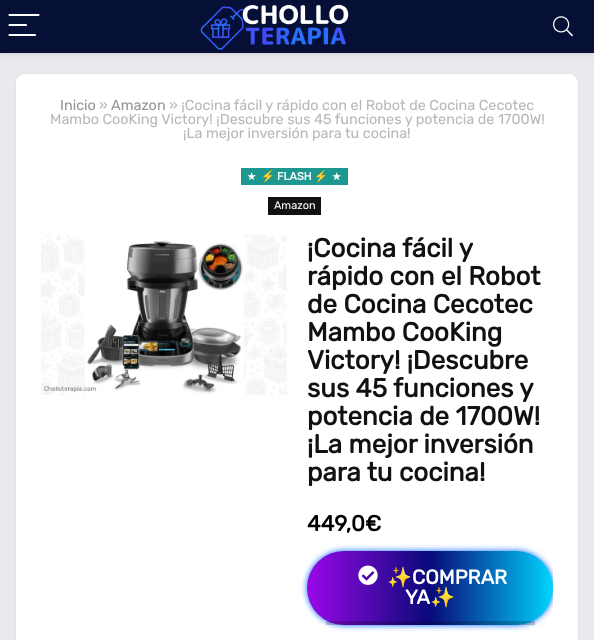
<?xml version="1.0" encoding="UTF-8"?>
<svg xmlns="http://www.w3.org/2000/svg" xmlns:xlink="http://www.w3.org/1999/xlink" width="594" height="640">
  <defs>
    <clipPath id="clip1"><rect x="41" y="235" width="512" height="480" /></clipPath>
    <linearGradient id="g1" gradientUnits="userSpaceOnUse" x1="307" y1="586" x2="553" y2="586"><stop offset="0" stop-color="#9a08e8" /><stop offset="0.5" stop-color="#090979" /><stop offset="1" stop-color="#00d4ff" /></linearGradient>
  </defs>
  <rect width="100%" height="100%" fill="#e9eaed" />
  <rect x="-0.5" y="-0.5" width="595" height="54" fill="none" stroke="#e2e3e6" />
  <rect y="1" width="594" height="53" fill="#000000" fill-opacity="0.1" filter="blur(4px)" />
  <rect width="594" height="53" fill="#061037" />
  <path d="M 9.5 15 h 29 m -29 10 h 16.5 m -16.5 10 h 25.5" fill="none" stroke="#ffffff" stroke-width="2.2" stroke-linecap="round" />
  <image x="200" y="4" width="149" height="46" xlink:href="image1.png" />
  <image x="553" y="16" width="20" height="21" xlink:href="image2.png" />
  <rect x="15.5" y="73.5" width="563" height="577" rx="9.5" fill="#ffffff" stroke="#e3e3e3" />
  <rect x="241" y="168" width="107" height="17" fill="#1d9891" />
  <rect x="268" y="197" width="53" height="18" fill="#111111" />
  <image x="41" y="235" width="246" height="160" xlink:href="image3.png" />
  <g clip-path="url(#clip1)">
    <rect x="307" y="551" width="246" height="74" rx="37" fill="#0067ff" filter="blur(3px)" />
  </g>
  <rect x="307" y="551" width="246" height="74" rx="37" fill="url(#g1)" />
  <rect x="326" y="621" width="209" height="4" fill="#000000" fill-opacity="0.2" />
  <image x="358" y="565" width="20" height="20" xlink:href="image4.png" />
  <text x="60" y="110" style="font-family: Rubik; font-size: 14.4px; font-weight: 300; fill: #949494">Inicio</text>
  <text x="99" y="110" style="font-family: Rubik; font-size: 14.4px; font-weight: 300; fill: #b8b8b8">»</text>
  <text x="111" y="110" style="font-family: Rubik; font-size: 14.4px; font-weight: 300; fill: #949494">Amazon</text>
  <text x="169" y="110" style="font-family: Rubik; font-size: 14.4px; font-weight: 300; fill: #b8b8b8">» ¡Cocina fácil y rápido con el Robot de Cocina Cecotec</text>
  <text x="50" y="124" style="font-family: Rubik; font-size: 14.4px; font-weight: 300; fill: #b8b8b8">Mambo CooKing Victory! ¡Descubre sus 45 funciones y potencia de 1700W!</text>
  <text x="183" y="138" style="font-family: Rubik; font-size: 14.4px; font-weight: 300; fill: #b8b8b8">¡La mejor inversión para tu cocina!</text>
  <text x="247" y="180" style="font-family: DejaVu Sans; font-size: 10px; font-weight: bold; fill: #ffffff">★</text>
  <text x="261" y="180" style="font-family: Noto Color Emoji; font-size: 11px; font-weight: bold; fill: #ffffff">⚡️</text>
  <text x="277" y="180" style="font-family: Rubik; font-size: 11px; font-weight: bold; fill: #ffffff">FLASH</text>
  <text x="314" y="180" style="font-family: Noto Color Emoji; font-size: 11px; font-weight: bold; fill: #ffffff">⚡️</text>
  <text x="332" y="180" style="font-family: DejaVu Sans; font-size: 10px; font-weight: bold; fill: #ffffff">★</text>
  <text x="274" y="209" style="font-family: Rubik; font-size: 11px; font-weight: 300; fill: #ffffff">Amazon</text>
  <text x="307" y="257" style="font-family: Rubik; font-size: 26px; font-weight: bold; fill: #111111">¡Cocina fácil y</text>
  <text x="307" y="285" style="font-family: Rubik; font-size: 26px; font-weight: bold; fill: #111111">rápido con el Robot</text>
  <text x="307" y="313" style="font-family: Rubik; font-size: 26px; font-weight: bold; fill: #111111">de Cocina Cecotec</text>
  <text x="307" y="341" style="font-family: Rubik; font-size: 26px; font-weight: bold; fill: #111111">Mambo CooKing</text>
  <text x="307" y="369" style="font-family: Rubik; font-size: 26px; font-weight: bold; fill: #111111">Victory! ¡Descubre</text>
  <text x="307" y="397" style="font-family: Rubik; font-size: 26px; font-weight: bold; fill: #111111">sus 45 funciones y</text>
  <text x="307" y="425" style="font-family: Rubik; font-size: 26px; font-weight: bold; fill: #111111">potencia de 1700W!</text>
  <text x="307" y="453" style="font-family: Rubik; font-size: 26px; font-weight: bold; fill: #111111">¡La mejor inversión</text>
  <text x="307" y="481" style="font-family: Rubik; font-size: 26px; font-weight: bold; fill: #111111">para tu cocina!</text>
  <text x="307" y="531" style="font-family: Rubik; font-size: 22px; font-weight: bold; fill: #000000">449,0€</text>
  <text x="387" y="584" style="font-family: Noto Color Emoji; font-size: 20px; font-weight: bold; fill: #ffffff">✨</text>
  <text x="412" y="584" style="font-family: Rubik; font-size: 20px; font-weight: bold; fill: #ffffff">COMPRAR</text>
  <text x="405" y="604" style="font-family: Rubik; font-size: 20px; font-weight: bold; fill: #ffffff">YA</text>
  <text x="430" y="604" style="font-family: Noto Color Emoji; font-size: 20px; font-weight: bold; fill: #ffffff">✨</text>
</svg>
